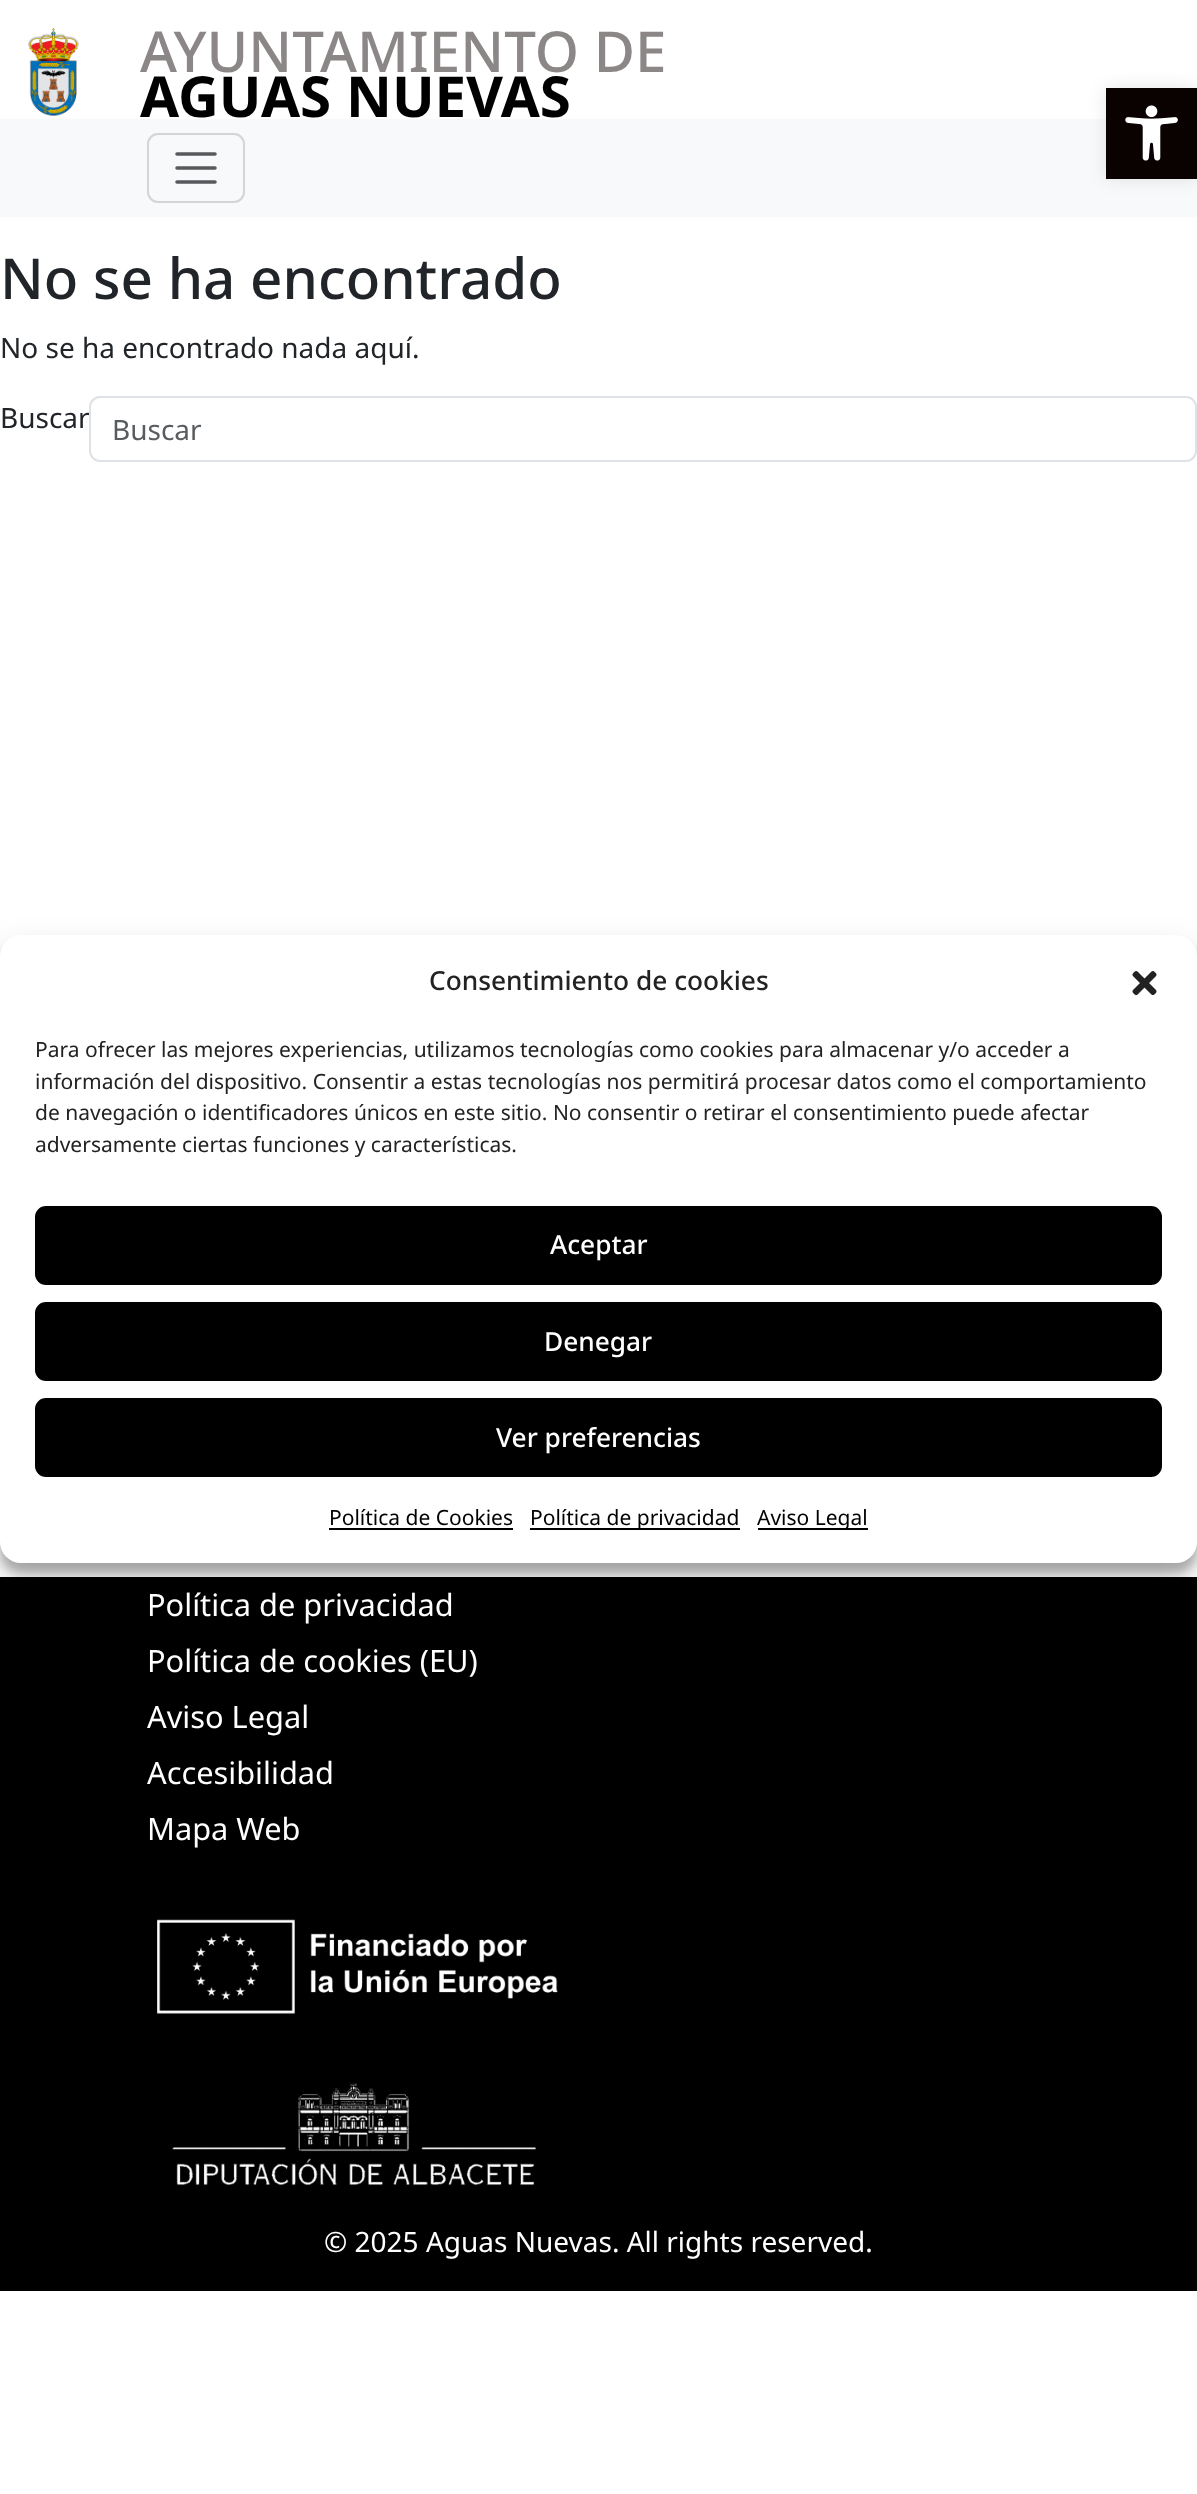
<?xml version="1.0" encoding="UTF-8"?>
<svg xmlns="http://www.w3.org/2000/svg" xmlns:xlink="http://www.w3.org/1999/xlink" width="1197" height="2494">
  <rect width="100%" height="100%" fill="#ffffff" />
  <image x="28" y="28" width="51" height="88" xlink:href="image1.png" />
  <rect y="119" width="1197" height="98" fill="#f8f9fa" />
  <rect x="148" y="134" width="96" height="68" rx="10" fill="none" stroke="#d3d4d5" stroke-width="2" />
  <path d="M 177 154 h 38 m -38 14 h 38 m -38 14 h 38" fill="none" stroke="#575a5d" stroke-width="3.5" stroke-linecap="round" />
  <rect y="1577" width="1197" height="714" fill="#000000" />
  <image x="157" y="1919" width="401" height="95" xlink:href="image2.png" />
  <image x="172" y="2083" width="364" height="103" xlink:href="image3.png" />
  <rect x="1106" y="88" width="91" height="91" fill="#000000" fill-opacity="0.1" filter="blur(9px)" />
  <rect x="1106" y="88" width="91" height="91" fill="#0a0101" />
  <image x="1125" y="105" width="53" height="56" xlink:href="image4.png" />
  <rect y="945" width="1197" height="628" rx="21" fill="#000000" fill-opacity="0.23" filter="blur(5px)" />
  <rect y="952" width="1197" height="628" rx="21" fill="#000000" fill-opacity="0.19" filter="blur(17.5px)" />
  <rect y="935" width="1197" height="628" rx="21" fill="#ffffff" />
  <image x="1132" y="971" width="25" height="25" xlink:href="image5.png" />
  <rect x="36" y="1207" width="1125" height="77" rx="10" fill="#000000" stroke="#000000" stroke-width="2" />
  <rect x="36" y="1303" width="1125" height="77" rx="10" fill="#000000" stroke="#000000" stroke-width="2" />
  <rect x="36" y="1399" width="1125" height="77" rx="10" fill="#000000" stroke="#000000" stroke-width="2" />
  <rect x="329" y="1528" width="184" height="2" fill="#000000" />
  <rect x="530" y="1528" width="210" height="2" fill="#000000" />
  <rect x="758" y="1528" width="110" height="2" fill="#000000" />
  <text x="140" y="72" style="font-family: Noto Sans; font-size: 56.5px; font-weight: 500; fill: #8b8787">AYUNTAMIENTO DE</text>
  <text x="140" y="117" style="font-family: Noto Sans; font-size: 56.5px; font-weight: bold; fill: #000000">AGUAS NUEVAS</text>
  <text x="0" y="299" style="font-family: Noto Sans; font-size: 56.5px; font-weight: 500; fill: #212529">No se ha encontrado</text>
  <text x="0" y="358" style="font-family: Noto Sans; font-size: 28px; fill: #212529">No se ha encontrado nada aquí.</text>
  <text x="0" y="428" style="font-family: Noto Sans; font-size: 28px; fill: #212529">Buscar</text>
  <rect x="90" y="397" width="1106" height="64" rx="10" fill="none" stroke="#dee2e6" stroke-width="2" />
  <text x="112" y="440" style="font-family: Noto Sans; font-size: 28px; fill: #595c5f">Buscar</text>
  <text x="147" y="1616" style="font-family: Noto Sans; font-size: 30.75px; fill: #ffffff">Política de privacidad</text>
  <text x="147" y="1672" style="font-family: Noto Sans; font-size: 30.75px; fill: #ffffff">Política de cookies (EU)</text>
  <text x="147" y="1728" style="font-family: Noto Sans; font-size: 30.75px; fill: #ffffff">Aviso Legal</text>
  <text x="147" y="1784" style="font-family: Noto Sans; font-size: 30.75px; fill: #ffffff">Accesibilidad</text>
  <text x="147" y="1840" style="font-family: Noto Sans; font-size: 30.75px; fill: #ffffff">Mapa Web</text>
  <text x="324" y="2252" style="font-family: Noto Sans; font-size: 28px; fill: #ffffff">© 2025 Aguas Nuevas. All rights reserved.</text>
  <text x="429" y="990" style="font-family: Noto Sans; font-size: 26.25px; font-weight: 500; fill: #222222">Consentimiento de cookies</text>
  <text x="35" y="1057" style="font-family: Noto Sans; font-size: 21px; fill: #222222">Para ofrecer las mejores experiencias, utilizamos tecnologías como cookies para almacenar y/o acceder a</text>
  <text x="35" y="1089" style="font-family: Noto Sans; font-size: 21px; fill: #222222">información del dispositivo. Consentir a estas tecnologías nos permitirá procesar datos como el comportamiento</text>
  <text x="35" y="1120" style="font-family: Noto Sans; font-size: 21px; fill: #222222">de navegación o identificadores únicos en este sitio. No consentir o retirar el consentimiento puede afectar</text>
  <text x="35" y="1152" style="font-family: Noto Sans; font-size: 21px; fill: #222222">adversamente ciertas funciones y características.</text>
  <text x="550" y="1254" style="font-family: Noto Sans; font-size: 26.25px; font-weight: 500; fill: #ffffff">Aceptar</text>
  <text x="544" y="1351" style="font-family: Noto Sans; font-size: 26.25px; font-weight: 500; fill: #ffffff">Denegar</text>
  <text x="496" y="1447" style="font-family: Noto Sans; font-size: 26.25px; font-weight: 500; fill: #ffffff">Ver preferencias</text>
  <text x="329" y="1525" style="font-family: Noto Sans; font-size: 21px; fill: #000000">Política de Cookies</text>
  <text x="530" y="1525" style="font-family: Noto Sans; font-size: 21px; fill: #000000">Política de privacidad</text>
  <text x="757" y="1525" style="font-family: Noto Sans; font-size: 21px; fill: #000000">Aviso Legal</text>
</svg>
